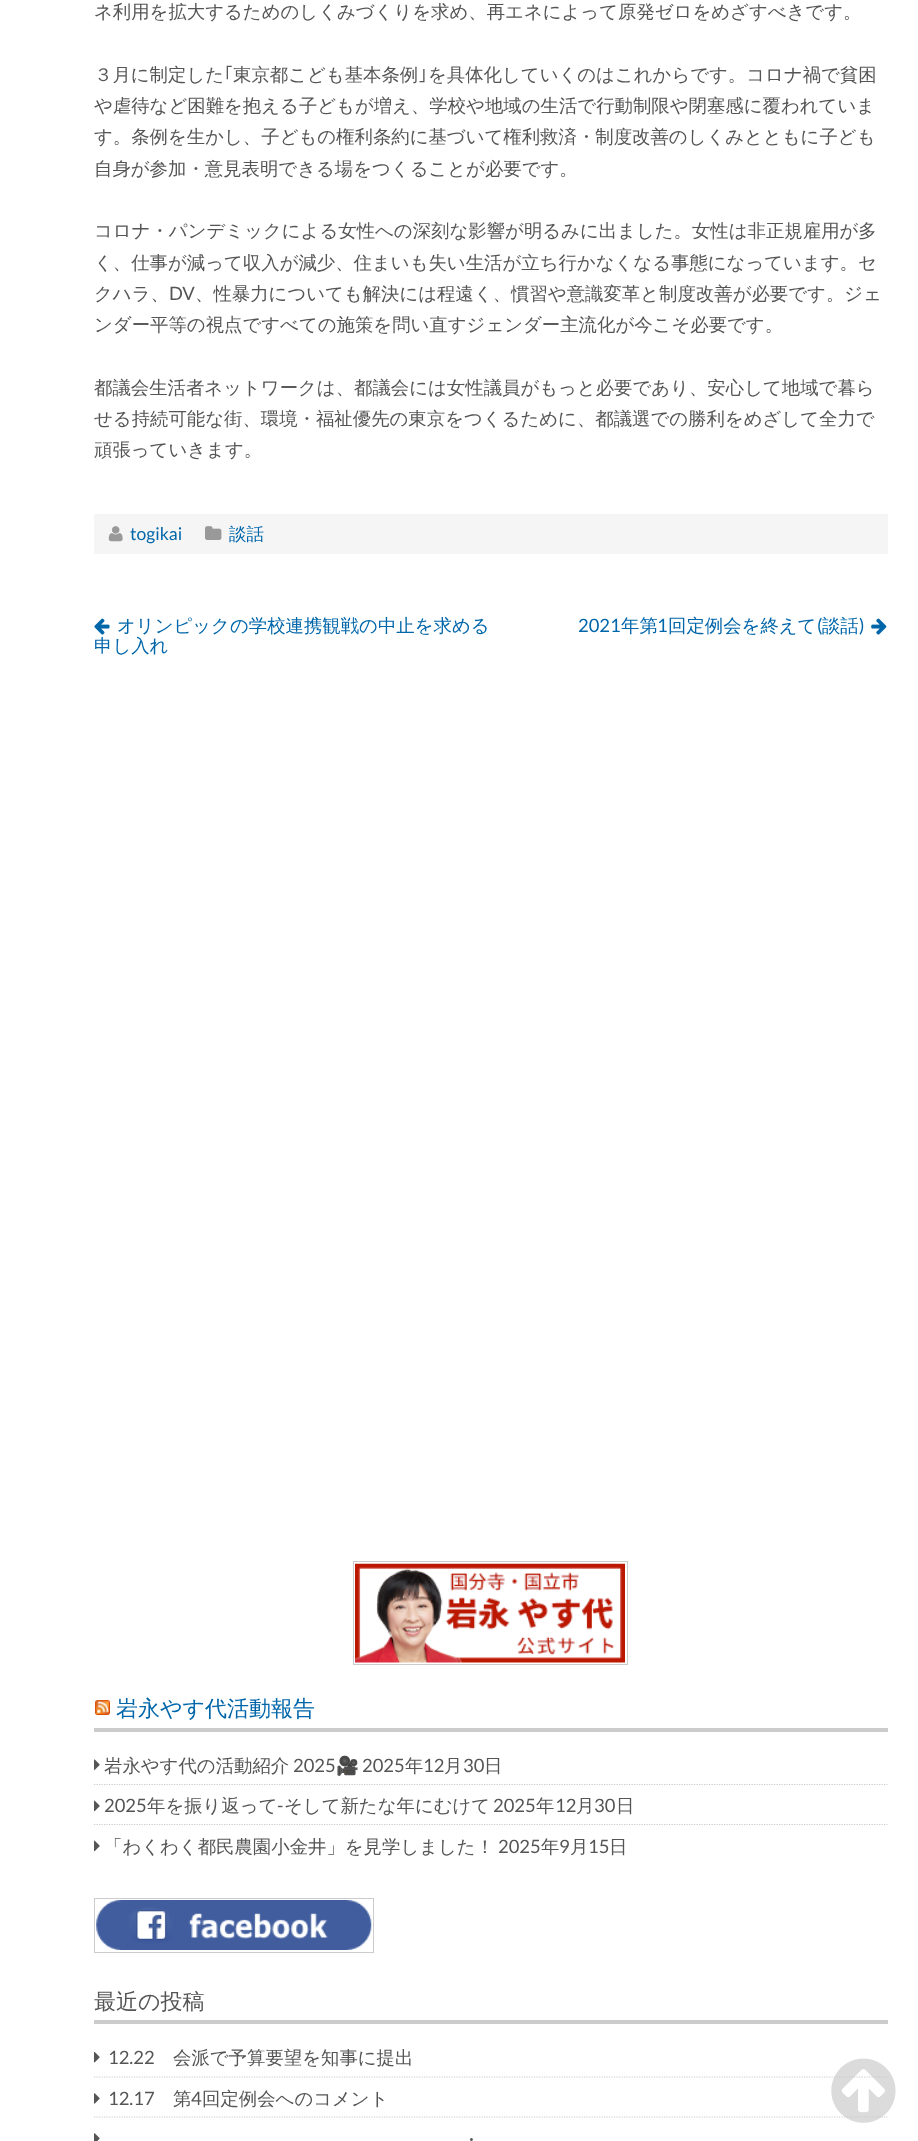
<?xml version="1.0" encoding="UTF-8"?>
<svg xmlns="http://www.w3.org/2000/svg" xmlns:xlink="http://www.w3.org/1999/xlink" width="918" height="2141">
  <defs>
    <clipPath id="clip1"><rect x="94" y="2036" width="794" height="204" /></clipPath>
  </defs>
  <rect width="100%" height="100%" fill="#ffffff" />
  <rect x="94" y="514" width="794" height="40" fill="#f5f5f5" />
  <image x="108" y="526" width="15" height="16" xlink:href="image1.png" />
  <image x="205" y="526" width="17" height="14" xlink:href="image2.png" />
  <image x="94" y="618" width="16" height="17" xlink:href="image3.png" />
  <image x="871" y="618" width="16" height="17" xlink:href="image4.png" />
  <rect x="353.5" y="1561.5" width="274" height="103" fill="none" stroke="#cccccc" />
  <image x="355" y="1563" width="270" height="100" xlink:href="image5.png" />
  <rect x="94" y="1728" width="794" height="4" fill="#cccccc" />
  <image x="95" y="1700" width="15" height="15" xlink:href="image6.png" />
  <image x="94" y="1759" width="6" height="11" xlink:href="image7.png" />
  <path d="M 94 1784.5 h 793.5" fill="none" stroke="#cccccc" stroke-width="1.2" stroke-dasharray="1.25 1.25" />
  <image x="94" y="1800" width="6" height="12" xlink:href="image8.png" />
  <path d="M 94 1824.5 h 793.5" fill="none" stroke="#cccccc" stroke-width="1.2" stroke-dasharray="1.25 1.25" />
  <image x="94" y="1840" width="6" height="12" xlink:href="image8.png" />
  <rect x="94.5" y="1898.5" width="279" height="54" fill="none" stroke="#cccccc" />
  <image x="96" y="1900" width="276" height="50" xlink:href="image9.png" />
  <rect x="94" y="2020" width="794" height="4" fill="#cccccc" />
  <g clip-path="url(#clip1)">
    <path d="M 94 2035.5 h 793.5" fill="none" stroke="#cccccc" stroke-width="1.2" stroke-dasharray="1.25 1.25" />
  </g>
  <image x="94" y="2052" width="6" height="11" xlink:href="image10.png" />
  <path d="M 94 2077 h 793.5" fill="none" stroke="#cccccc" stroke-width="1.2" stroke-dasharray="1.25 1.25" />
  <image x="94" y="2093" width="6" height="11" xlink:href="image11.png" />
  <path d="M 94 2117 h 793.5" fill="none" stroke="#cccccc" stroke-width="1.2" stroke-dasharray="1.25 1.25" />
  <image x="94" y="2133" width="6" height="8" xlink:href="image12.png" />
  <image x="831" y="2058" width="65" height="65" xlink:href="image13.png" />
  <text x="94" y="18" style="font-family: WenQuanYi Zen Hei; font-size: 18.4px; font-weight: 500; fill: #555555">ネ利用を拡大するためのしくみづくりを求め、再エネによって原発ゼロをめざすべきです。</text>
  <text x="94" y="81" style="font-family: WenQuanYi Zen Hei; font-size: 18.4px; font-weight: 500; fill: #555555">３月に制定した</text>
  <text x="224" y="81" style="font-family: IPAPGothic; font-size: 18.4px; fill: #555555">｢</text>
  <text x="233" y="81" style="font-family: WenQuanYi Zen Hei; font-size: 18.4px; font-weight: 500; fill: #555555">東京都こども基本条例</text>
  <text x="418" y="81" style="font-family: IPAPGothic; font-size: 18.4px; fill: #555555">｣</text>
  <text x="428" y="81" style="font-family: WenQuanYi Zen Hei; font-size: 18.4px; font-weight: 500; fill: #555555">を具体化していくのはこれからです。コロナ禍で貧困</text>
  <text x="94" y="112" style="font-family: WenQuanYi Zen Hei; font-size: 18.4px; font-weight: 500; fill: #555555">や虐待など困難を抱える子どもが増え、学校や地域の生活で行動制限や閉塞感に覆われていま</text>
  <text x="94" y="143" style="font-family: WenQuanYi Zen Hei; font-size: 18.4px; font-weight: 500; fill: #555555">す。条例を生かし、子どもの権利条約に基づいて権利救済・制度改善のしくみとともに子ども</text>
  <text x="94" y="175" style="font-family: WenQuanYi Zen Hei; font-size: 18.4px; font-weight: 500; fill: #555555">自身が参加・意見表明できる場をつくることが必要です。</text>
  <text x="94" y="237" style="font-family: WenQuanYi Zen Hei; font-size: 18.4px; font-weight: 500; fill: #555555">コロナ・パンデミックによる女性への深刻な影響が明るみに出ました。女性は非正規雇用が多</text>
  <text x="94" y="269" style="font-family: WenQuanYi Zen Hei; font-size: 18.4px; font-weight: 500; fill: #555555">く、仕事が減って収入が減少、住まいも失い生活が立ち行かなくなる事態になっています。セ</text>
  <text x="94" y="300" style="font-family: WenQuanYi Zen Hei; font-size: 18.4px; font-weight: 500; fill: #555555">クハラ、</text>
  <text x="169" y="300" style="font-family: Lato; font-size: 18.4px; fill: #555555">DV</text>
  <text x="195" y="300" style="font-family: WenQuanYi Zen Hei; font-size: 18.4px; font-weight: 500; fill: #555555">、性暴力についても解決には程遠く、慣習や意識変革と制度改善が必要です。ジェ</text>
  <text x="94" y="331" style="font-family: WenQuanYi Zen Hei; font-size: 18.4px; font-weight: 500; fill: #555555">ンダー平等の視点ですべての施策を問い直すジェンダー主流化が今こそ必要です。</text>
  <text x="94" y="394" style="font-family: WenQuanYi Zen Hei; font-size: 18.4px; font-weight: 500; fill: #555555">都議会生活者ネットワークは、都議会には女性議員がもっと必要であり、安心して地域で暮ら</text>
  <text x="94" y="425" style="font-family: WenQuanYi Zen Hei; font-size: 18.4px; font-weight: 500; fill: #555555">せる持続可能な街、環境・福祉優先の東京をつくるために、都議選での勝利をめざして全力で</text>
  <text x="94" y="456" style="font-family: WenQuanYi Zen Hei; font-size: 18.4px; font-weight: 500; fill: #555555">頑張っていきます。</text>
  <text x="130" y="540" style="font-family: Lato; font-size: 17.5px; fill: #0066aa">togikai</text>
  <text x="229" y="540" style="font-family: WenQuanYi Zen Hei; font-size: 17.5px; font-weight: 500; fill: #0066aa">談話</text>
  <text x="117" y="632" style="font-family: WenQuanYi Zen Hei; font-size: 18.4px; font-weight: 500; fill: #0066aa">オリンピックの学校連携観戦の中止を求める</text>
  <text x="94" y="652" style="font-family: WenQuanYi Zen Hei; font-size: 18.4px; font-weight: 500; fill: #0066aa">申し入れ</text>
  <text x="621" y="632" style="font-family: WenQuanYi Zen Hei; font-size: 18.4px; font-weight: 500; fill: #0066aa">年第</text>
  <text x="668" y="632" style="font-family: WenQuanYi Zen Hei; font-size: 18.4px; font-weight: 500; fill: #0066aa">回定例会を終えて 談話</text>
  <text x="578" y="632" style="font-family: Lato; font-size: 18.4px; fill: #0066aa">2021</text>
  <text x="657" y="632" style="font-family: Lato; font-size: 18.4px; fill: #0066aa">1</text>
  <text x="817" y="632" style="font-family: Lato; font-size: 18.4px; fill: #0066aa">(</text>
  <text x="859" y="632" style="font-family: Lato; font-size: 18.4px; fill: #0066aa">)</text>
  <text x="116" y="1716" style="font-family: WenQuanYi Zen Hei; font-size: 22px; font-weight: 500; fill: #0066aa">岩永やす代活動報告</text>
  <text x="104" y="1772" style="font-family: WenQuanYi Zen Hei; font-size: 18.4px; font-weight: 500; fill: #555555">岩永やす代の活動紹介</text>
  <text x="293" y="1772" style="font-family: Lato; font-size: 18.4px; fill: #555555">2025</text>
  <text x="336" y="1772" style="font-family: Noto Color Emoji; font-size: 18.4px; fill: #555555">🎥</text>
  <text x="362" y="1772" style="font-family: Lato; font-size: 18.4px; fill: #555555">2025</text>
  <text x="405" y="1772" style="font-family: WenQuanYi Zen Hei; font-size: 18.4px; font-weight: 500; fill: #555555">年</text>
  <text x="423" y="1772" style="font-family: Lato; font-size: 18.4px; fill: #555555">12</text>
  <text x="444" y="1772" style="font-family: WenQuanYi Zen Hei; font-size: 18.4px; font-weight: 500; fill: #555555">月</text>
  <text x="463" y="1772" style="font-family: Lato; font-size: 18.4px; fill: #555555">30</text>
  <text x="484" y="1772" style="font-family: WenQuanYi Zen Hei; font-size: 18.4px; font-weight: 500; fill: #555555">日</text>
  <text x="104" y="1812" style="font-family: Lato; font-size: 18.4px; fill: #555555">2025</text>
  <text x="147" y="1812" style="font-family: WenQuanYi Zen Hei; font-size: 18.4px; font-weight: 500; fill: #555555">年を振り返って</text>
  <text x="277" y="1812" style="font-family: Lato; font-size: 18.4px; fill: #555555">-</text>
  <text x="284" y="1812" style="font-family: WenQuanYi Zen Hei; font-size: 18.4px; font-weight: 500; fill: #555555">そして新たな年にむけて</text>
  <text x="493" y="1812" style="font-family: Lato; font-size: 18.4px; fill: #555555">2025</text>
  <text x="536" y="1812" style="font-family: WenQuanYi Zen Hei; font-size: 18.4px; font-weight: 500; fill: #555555">年</text>
  <text x="555" y="1812" style="font-family: Lato; font-size: 18.4px; fill: #555555">12</text>
  <text x="576" y="1812" style="font-family: WenQuanYi Zen Hei; font-size: 18.4px; font-weight: 500; fill: #555555">月</text>
  <text x="594" y="1812" style="font-family: Lato; font-size: 18.4px; fill: #555555">30</text>
  <text x="616" y="1812" style="font-family: WenQuanYi Zen Hei; font-size: 18.4px; font-weight: 500; fill: #555555">日</text>
  <text x="104" y="1853" style="font-family: WenQuanYi Zen Hei; font-size: 18.4px; font-weight: 500; fill: #555555">「わくわく都民農園小金井」を見学しました！</text>
  <text x="498" y="1853" style="font-family: Lato; font-size: 18.4px; fill: #555555">2025</text>
  <text x="541" y="1853" style="font-family: WenQuanYi Zen Hei; font-size: 18.4px; font-weight: 500; fill: #555555">年</text>
  <text x="559" y="1853" style="font-family: Lato; font-size: 18.4px; fill: #555555">9</text>
  <text x="570" y="1853" style="font-family: WenQuanYi Zen Hei; font-size: 18.4px; font-weight: 500; fill: #555555">月</text>
  <text x="588" y="1853" style="font-family: Lato; font-size: 18.4px; fill: #555555">15</text>
  <text x="609" y="1853" style="font-family: WenQuanYi Zen Hei; font-size: 18.4px; font-weight: 500; fill: #555555">日</text>
  <text x="94" y="2009" style="font-family: WenQuanYi Zen Hei; font-size: 22px; font-weight: 500; fill: #555555">最近の投稿</text>
  <text x="108" y="2064" style="font-family: Lato; font-size: 18.4px; fill: #555555">12.22</text>
  <text x="173" y="2064" style="font-family: WenQuanYi Zen Hei; font-size: 18.4px; font-weight: 500; fill: #555555">会派で予算要望を知事に提出</text>
  <text x="108" y="2105" style="font-family: Lato; font-size: 18.4px; fill: #555555">12.17</text>
  <text x="173" y="2105" style="font-family: WenQuanYi Zen Hei; font-size: 18.4px; font-weight: 500; fill: #555555">第</text>
  <text x="191" y="2105" style="font-family: Lato; font-size: 18.4px; fill: #555555">4</text>
  <text x="202" y="2105" style="font-family: WenQuanYi Zen Hei; font-size: 18.4px; font-weight: 500; fill: #555555">回定例会へのコメント</text>
  <text x="462" y="2146" word-spacing="-2" style="font-family: WenQuanYi Zen Hei; font-size: 18.4px; font-weight: 500; fill: #555555">・</text>
</svg>
